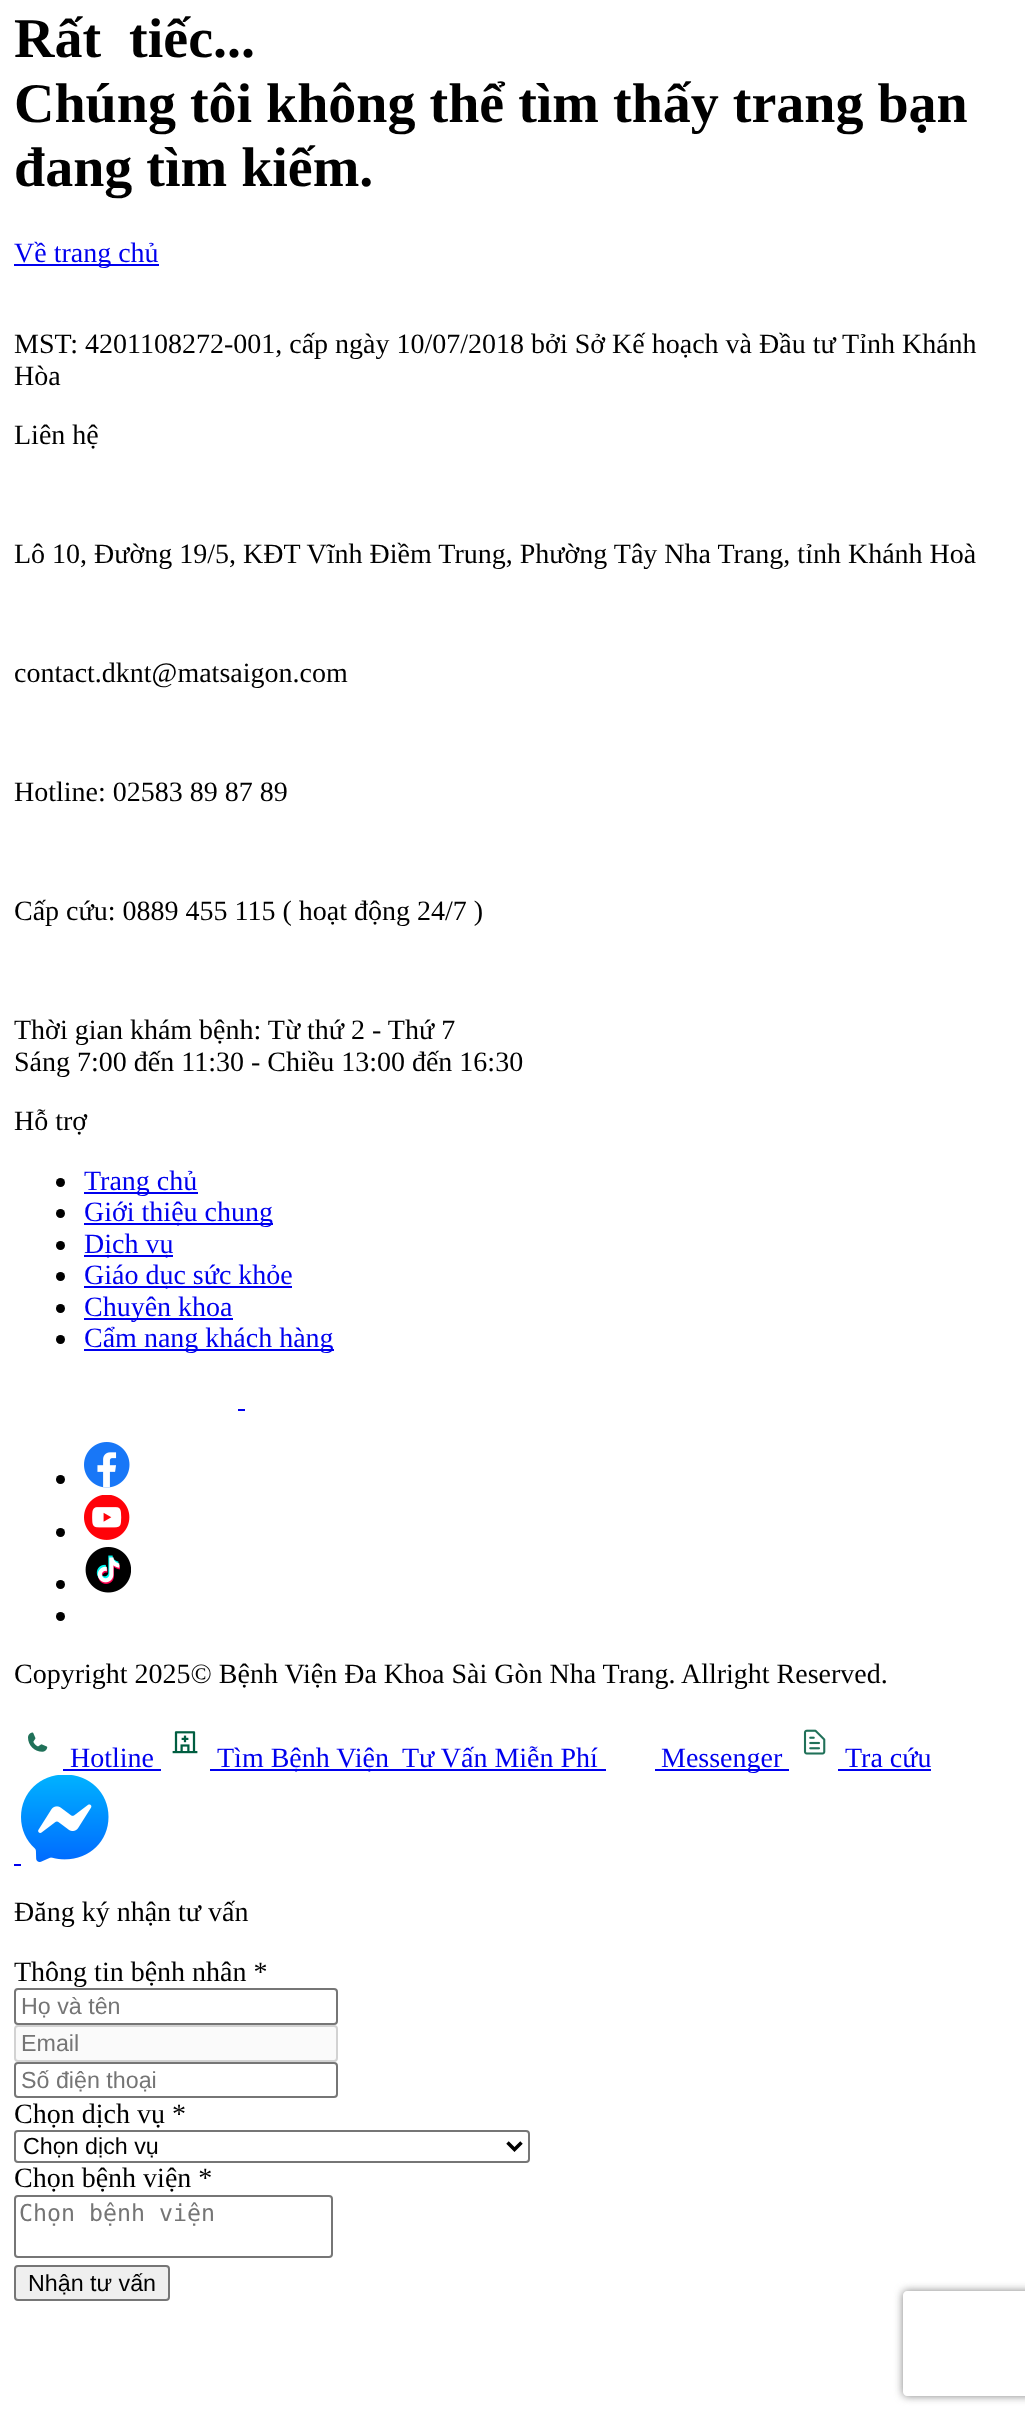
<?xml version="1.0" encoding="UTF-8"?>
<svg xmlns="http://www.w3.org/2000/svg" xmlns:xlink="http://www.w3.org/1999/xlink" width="1025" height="2419">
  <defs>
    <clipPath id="clip1"><path d="M 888 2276 h 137 v 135 h -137 z m 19 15 h 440 c 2 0 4 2 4 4 v 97 c 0 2 -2 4 -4 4 h -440 c -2 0 -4 -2 -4 -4 v -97 c 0 -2 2 -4 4 -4 z" clip-rule="evenodd" /></clipPath>
  </defs>
  <rect width="100%" height="100%" fill="#ffffff" />
  <rect x="14" y="264" width="145" height="2" fill="#0000ee" />
  <circle cx="60.5" cy="1182.5" r="4.5" fill="#000000" />
  <rect x="84" y="1192" width="114" height="2" fill="#0000ee" />
  <circle cx="60.5" cy="1213.5" r="4.5" fill="#000000" />
  <rect x="84" y="1223" width="189" height="2" fill="#0000ee" />
  <circle cx="60.5" cy="1245.5" r="4.5" fill="#000000" />
  <rect x="84" y="1255" width="89" height="2" fill="#0000ee" />
  <circle cx="60.5" cy="1276.5" r="4.5" fill="#000000" />
  <rect x="84" y="1286" width="208" height="2" fill="#0000ee" />
  <circle cx="60.5" cy="1308.5" r="4.5" fill="#000000" />
  <rect x="84" y="1318" width="149" height="2" fill="#0000ee" />
  <circle cx="60.5" cy="1339.5" r="4.5" fill="#000000" />
  <rect x="84" y="1349" width="250" height="2" fill="#0000ee" />
  <rect x="238" y="1409" width="7" height="2" fill="#0000ee" />
  <circle cx="60.5" cy="1479.5" r="4.5" fill="#000000" />
  <image x="84" y="1442" width="46" height="46" xlink:href="image1.png" />
  <circle cx="60.5" cy="1532.5" r="4.5" fill="#000000" />
  <image x="84" y="1495" width="46" height="45" xlink:href="image2.png" />
  <circle cx="60.5" cy="1584.5" r="4.5" fill="#000000" />
  <image x="85" y="1547" width="46" height="46" xlink:href="image3.png" />
  <circle cx="60.5" cy="1616.5" r="4.5" fill="#000000" />
  <image x="28" y="1732" width="20" height="20" xlink:href="image4.png" />
  <image x="172" y="1731" width="26" height="23" xlink:href="image5.png" />
  <image x="803" y="1729" width="23" height="26" xlink:href="image6.png" />
  <rect x="63" y="1769" width="98" height="2" fill="#0000ee" />
  <rect x="210" y="1769" width="396" height="2" fill="#0000ee" />
  <rect x="655" y="1769" width="134" height="2" fill="#0000ee" />
  <rect x="838" y="1769" width="93" height="2" fill="#0000ee" />
  <image x="21" y="1775" width="88" height="87" xlink:href="image7.png" />
  <rect x="14" y="1864" width="7" height="2" fill="#0000ee" />
  <rect x="15" y="1989" width="322" height="35" rx="3" fill="none" stroke="#767676" stroke-width="2" />
  <rect x="15" y="2026" width="322" height="35" rx="3" fill="#fafafa" stroke="#d2d2d2" stroke-width="2" />
  <rect x="15" y="2063" width="322" height="34" rx="3" fill="none" stroke="#767676" stroke-width="2" />
  <rect x="15" y="2131" width="514" height="31" rx="3" fill="none" stroke="#767676" stroke-width="2" />
  <path d="M 507.5 2142.5 l 7 7 l 7 -7" fill="none" stroke="#000000" stroke-width="3.5" />
  <rect x="15" y="2196" width="317" height="61" rx="3" fill="none" stroke="#767676" stroke-width="2" />
  <rect x="15" y="2266" width="154" height="34" rx="3" fill="#efefef" stroke="#767676" stroke-width="2" />
  <g clip-path="url(#clip1)">
    <rect x="903" y="2291" width="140" height="105" rx="4" fill="#808080" filter="blur(4.5px)" />
  </g>
  <text x="14" y="57" word-spacing="14" style="font-family: Liberation Serif; font-size: 56px; font-weight: bold; fill: #000000">Rất tiếc...</text>
  <text x="14" y="122" style="font-family: Liberation Serif; font-size: 56px; font-weight: bold; fill: #000000">Chúng tôi không thể tìm thấy trang bạn</text>
  <text x="14" y="186" style="font-family: Liberation Serif; font-size: 56px; font-weight: bold; fill: #000000">đang tìm kiếm.</text>
  <text x="14" y="262" style="font-family: Liberation Serif; font-size: 28px; fill: #0000ee">Về trang chủ</text>
  <text x="14" y="353" style="font-family: Liberation Serif; font-size: 28px; fill: #000000">MST: 4201108272-001, cấp ngày 10/07/2018 bởi Sở Kế hoạch và Đầu tư Tỉnh Khánh</text>
  <text x="14" y="385" style="font-family: Liberation Serif; font-size: 28px; fill: #000000">Hòa</text>
  <text x="14" y="444" style="font-family: Liberation Serif; font-size: 28px; fill: #000000">Liên hệ</text>
  <text x="14" y="563" style="font-family: Liberation Serif; font-size: 28px; fill: #000000">Lô 10, Đường 19/5, KĐT Vĩnh Điềm Trung, Phường Tây Nha Trang, tỉnh Khánh Hoà</text>
  <text x="14" y="682" style="font-family: Liberation Serif; font-size: 28px; fill: #000000">contact.dknt@matsaigon.com</text>
  <text x="14" y="801" style="font-family: Liberation Serif; font-size: 28px; fill: #000000">Hotline: 02583 89 87 89</text>
  <text x="14" y="920" style="font-family: Liberation Serif; font-size: 28px; fill: #000000">Cấp cứu: 0889 455 115 ( hoạt động 24/7 )</text>
  <text x="14" y="1039" style="font-family: Liberation Serif; font-size: 28px; fill: #000000">Thời gian khám bệnh: Từ thứ 2 - Thứ 7</text>
  <text x="14" y="1071" style="font-family: Liberation Serif; font-size: 28px; fill: #000000">Sáng 7:00 đến 11:30 - Chiều 13:00 đến 16:30</text>
  <text x="14" y="1130" style="font-family: Liberation Serif; font-size: 28px; fill: #000000">Hỗ trợ</text>
  <text x="84" y="1190" style="font-family: Liberation Serif; font-size: 28px; fill: #0000ee">Trang chủ</text>
  <text x="84" y="1221" style="font-family: Liberation Serif; font-size: 28px; fill: #0000ee">Giới thiệu chung</text>
  <text x="84" y="1253" style="font-family: Liberation Serif; font-size: 28px; fill: #0000ee">Dịch vụ</text>
  <text x="84" y="1284" style="font-family: Liberation Serif; font-size: 28px; fill: #0000ee">Giáo dục sức khỏe</text>
  <text x="84" y="1316" style="font-family: Liberation Serif; font-size: 28px; fill: #0000ee">Chuyên khoa</text>
  <text x="84" y="1347" style="font-family: Liberation Serif; font-size: 28px; fill: #0000ee">Cẩm nang khách hàng</text>
  <text x="14" y="1683" style="font-family: Liberation Serif; font-size: 28px; fill: #000000">Copyright 2025© Bệnh Viện Đa Khoa Sài Gòn Nha Trang. Allright Reserved.</text>
  <text x="70" y="1767" style="font-family: Liberation Serif; font-size: 28px; fill: #0000ee">Hotline</text>
  <text x="217" y="1767" style="font-family: Liberation Serif; font-size: 28px; fill: #0000ee">Tìm Bệnh Viện</text>
  <text x="402" y="1767" style="font-family: Liberation Serif; font-size: 28px; fill: #0000ee">Tư Vấn Miễn Phí</text>
  <text x="661" y="1767" style="font-family: Liberation Serif; font-size: 28px; fill: #0000ee">Messenger</text>
  <text x="845" y="1767" style="font-family: Liberation Serif; font-size: 28px; fill: #0000ee">Tra cứu</text>
  <text x="14" y="1921" style="font-family: Liberation Serif; font-size: 28px; fill: #000000">Đăng ký nhận tư vấn</text>
  <text x="14" y="1981" style="font-family: Liberation Serif; font-size: 28px; fill: #000000">Thông tin bệnh nhân *</text>
  <text x="21" y="2014" style="font-family: Liberation Sans; font-size: 23.25px; fill: #757575">Họ và tên</text>
  <text x="21" y="2051" style="font-family: Liberation Sans; font-size: 23.25px; fill: #757575">Email</text>
  <text x="21" y="2088" style="font-family: Liberation Sans; font-size: 23.25px; fill: #757575">Số điện thoại</text>
  <text x="14" y="2123" style="font-family: Liberation Serif; font-size: 28px; fill: #000000">Chọn dịch vụ *</text>
  <text x="23" y="2154" style="font-family: Liberation Sans; font-size: 23.25px; fill: #000000">Chọn dịch vụ</text>
  <text x="14" y="2187" style="font-family: Liberation Serif; font-size: 28px; fill: #000000">Chọn bệnh viện *</text>
  <text x="19" y="2221" style="font-family: DejaVu Sans Mono; font-size: 23.25px; fill: #757575">Chọn bệnh viện</text>
  <text x="28" y="2291" style="font-family: Liberation Sans; font-size: 23.25px; fill: #000000">Nhận tư vấn</text>
</svg>
